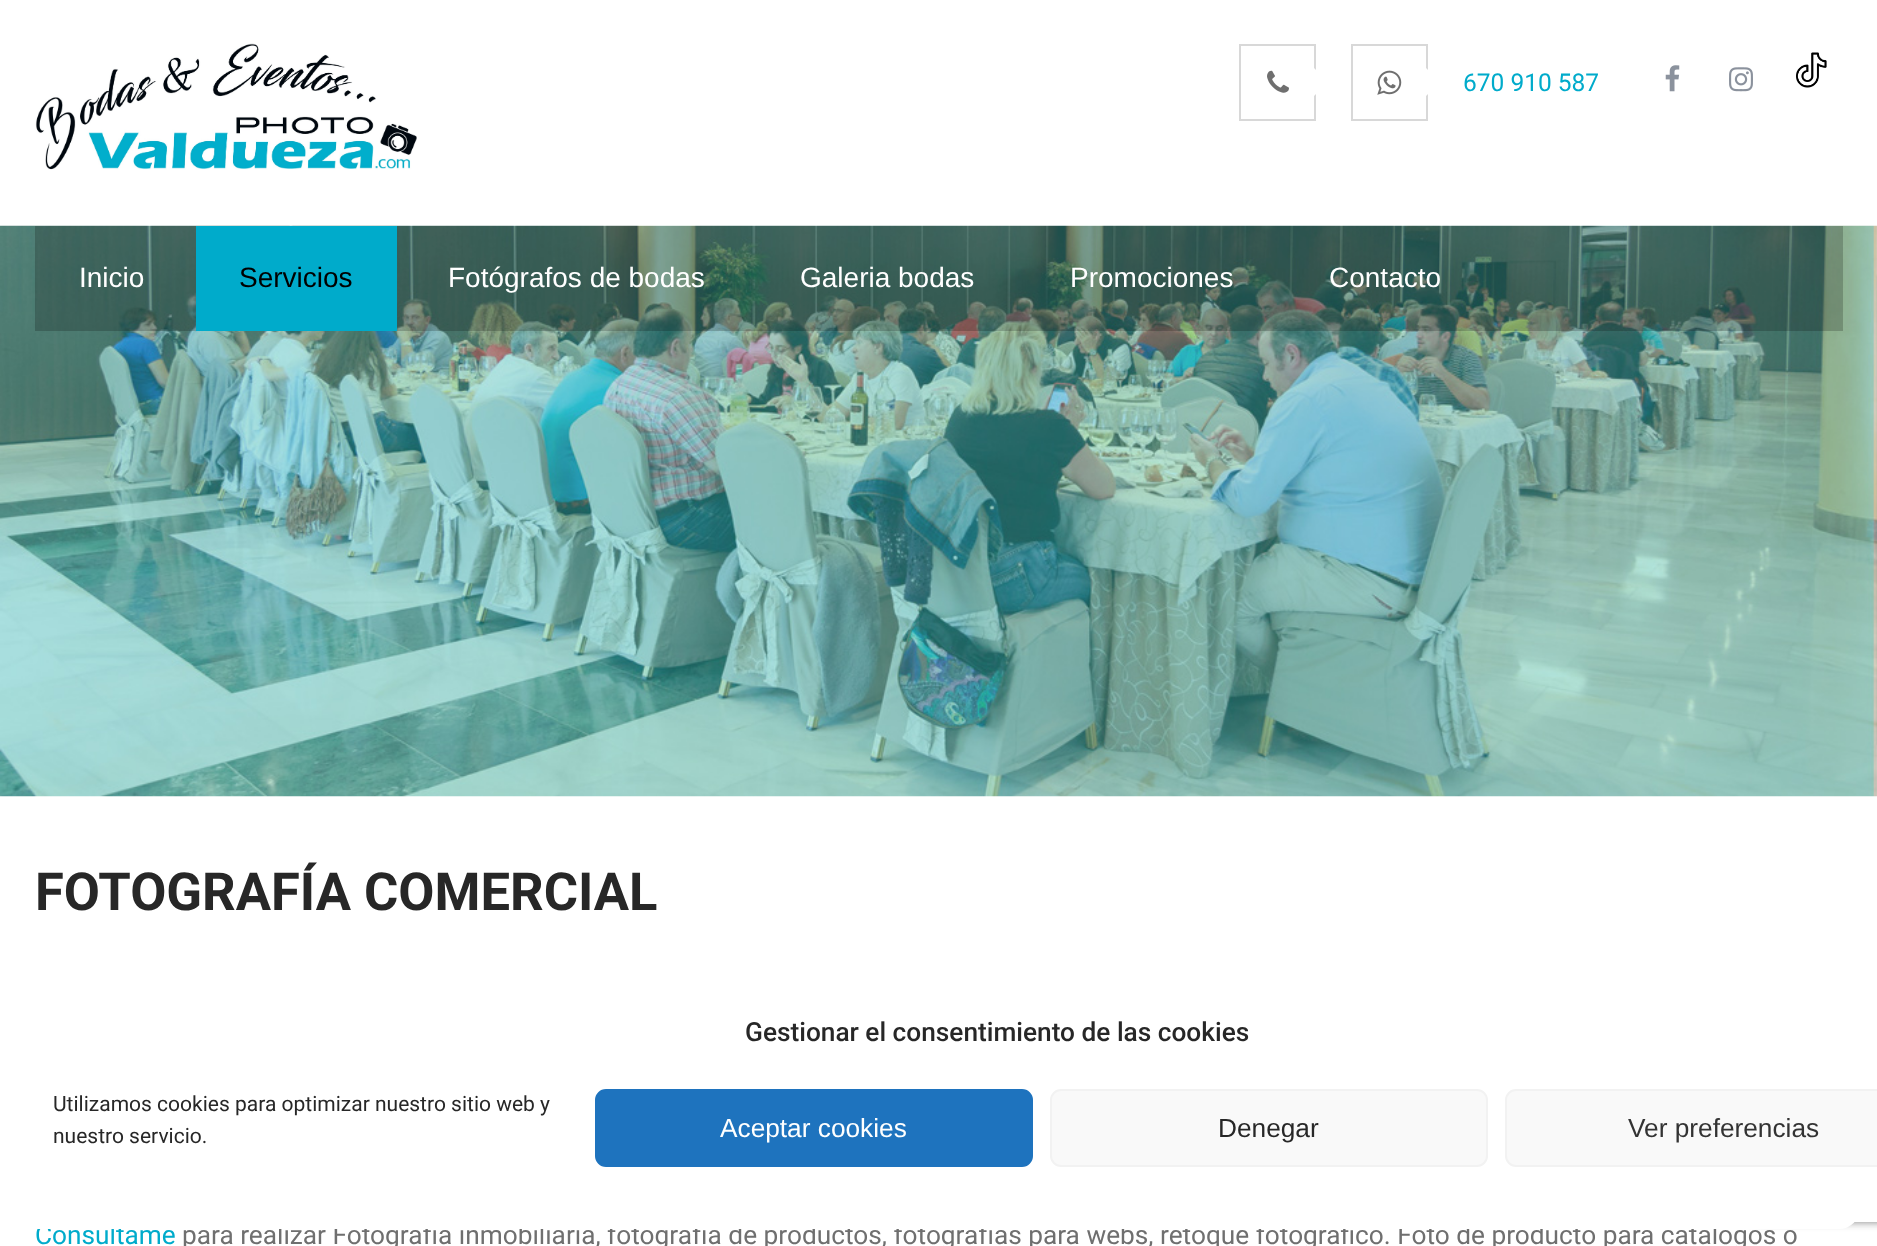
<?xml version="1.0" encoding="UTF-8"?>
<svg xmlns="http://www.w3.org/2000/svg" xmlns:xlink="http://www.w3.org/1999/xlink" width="1877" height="1246">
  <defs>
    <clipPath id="clip1"><path d="M 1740 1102 h 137 v 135 h -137 z m 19 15 h 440 c 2 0 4 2 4 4 v 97 c 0 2 -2 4 -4 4 h -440 c -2 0 -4 -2 -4 -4 v -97 c 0 -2 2 -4 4 -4 z" clip-rule="evenodd" /></clipPath>
  </defs>
  <rect width="100%" height="100%" fill="#ffffff" />
  <image x="35" y="43" width="382" height="127" xlink:href="image1.png" />
  <rect x="1240" y="45" width="75" height="75" fill="none" stroke="#d8d8d8" stroke-width="2" />
  <image x="1267" y="70" width="22" height="23" xlink:href="image2.png" />
  <path d="M 1314 96 v -28 l 14 14 z" fill="#ffffff" />
  <rect x="1352" y="45" width="75" height="75" fill="none" stroke="#d8d8d8" stroke-width="2" />
  <image x="1377" y="70" width="25" height="25" xlink:href="image3.png" />
  <path d="M 1426 96 v -28 l 14 14 z" fill="#ffffff" />
  <image x="1665" y="65" width="15" height="27" xlink:href="image4.png" />
  <image x="1729" y="67" width="24" height="25" xlink:href="image5.png" />
  <image x="1796" y="52" width="31" height="36" xlink:href="image6.png" />
  <image x="0" y="225" width="1877" height="572" xlink:href="image7.png" />
  <rect x="35" y="226" width="1808" height="105" fill="#000000" fill-opacity="0.2" />
  <rect x="196" y="226" width="201" height="105" fill="#00abcb" />
  <g clip-path="url(#clip1)">
    <rect x="1755" y="1117" width="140" height="105" rx="4" fill="#808080" filter="blur(4.5px)" />
  </g>
  <text x="1463" y="91" style="font-family: Roboto; font-size: 24.5px; fill: #00abcb">670 910 587</text>
  <text x="79" y="287" style="font-family: Liberation Sans; font-size: 28px; fill: #ffffff">Inicio</text>
  <text x="239" y="287" style="font-family: Liberation Sans; font-size: 28px; fill: #000000">Servicios</text>
  <text x="448" y="287" style="font-family: Liberation Sans; font-size: 28px; fill: #ffffff">Fotógrafos de bodas</text>
  <text x="800" y="287" style="font-family: Liberation Sans; font-size: 28px; fill: #ffffff">Galeria bodas</text>
  <text x="1070" y="287" style="font-family: Liberation Sans; font-size: 28px; fill: #ffffff">Promociones</text>
  <text x="1329" y="287" style="font-family: Liberation Sans; font-size: 28px; fill: #ffffff">Contacto</text>
  <text x="35" y="910" style="font-family: Roboto; font-size: 52.5px; font-weight: bold; fill: #272727">FOTOGRAFÍA COMERCIAL</text>
  <text x="35" y="1244" style="font-family: Roboto; font-size: 26.25px; fill: #00abcb">Consúltame</text>
  <text x="182" y="1244" style="font-family: Roboto; font-size: 26.25px; fill: #6f6f6f">para realizar Fotografía inmobiliaria, fotografía de productos, fotografías para webs, retoque fotográfico. Foto de producto para catálogos o</text>
  <rect x="18" y="985" width="1842" height="244" rx="21" fill="#ffffff" />
  <text x="745" y="1041" style="font-family: Roboto; font-size: 26.25px; font-weight: 500; fill: #272727">Gestionar el consentimiento de las cookies</text>
  <text x="53" y="1111" style="font-family: Roboto; font-size: 21px; fill: #272727">Utilizamos cookies para optimizar nuestro sitio web y</text>
  <text x="53" y="1143" style="font-family: Roboto; font-size: 21px; fill: #272727">nuestro servicio.</text>
  <rect x="596" y="1090" width="436" height="76" rx="10" fill="#1e73be" stroke="#1e73be" stroke-width="2" />
  <text x="720" y="1137" style="font-family: Liberation Sans; font-size: 26.25px; fill: #ffffff">Aceptar cookies</text>
  <rect x="1051" y="1090" width="436" height="76" rx="10" fill="#f9f9f9" stroke="#f2f2f2" stroke-width="2" />
  <text x="1218" y="1137" style="font-family: Liberation Sans; font-size: 26.25px; fill: #272727">Denegar</text>
  <rect x="1506" y="1090" width="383" height="76" rx="10" fill="#f9f9f9" stroke="#f2f2f2" stroke-width="2" />
  <text x="1628" y="1137" style="font-family: Liberation Sans; font-size: 26.25px; fill: #333333">Ver preferencias</text>
</svg>
